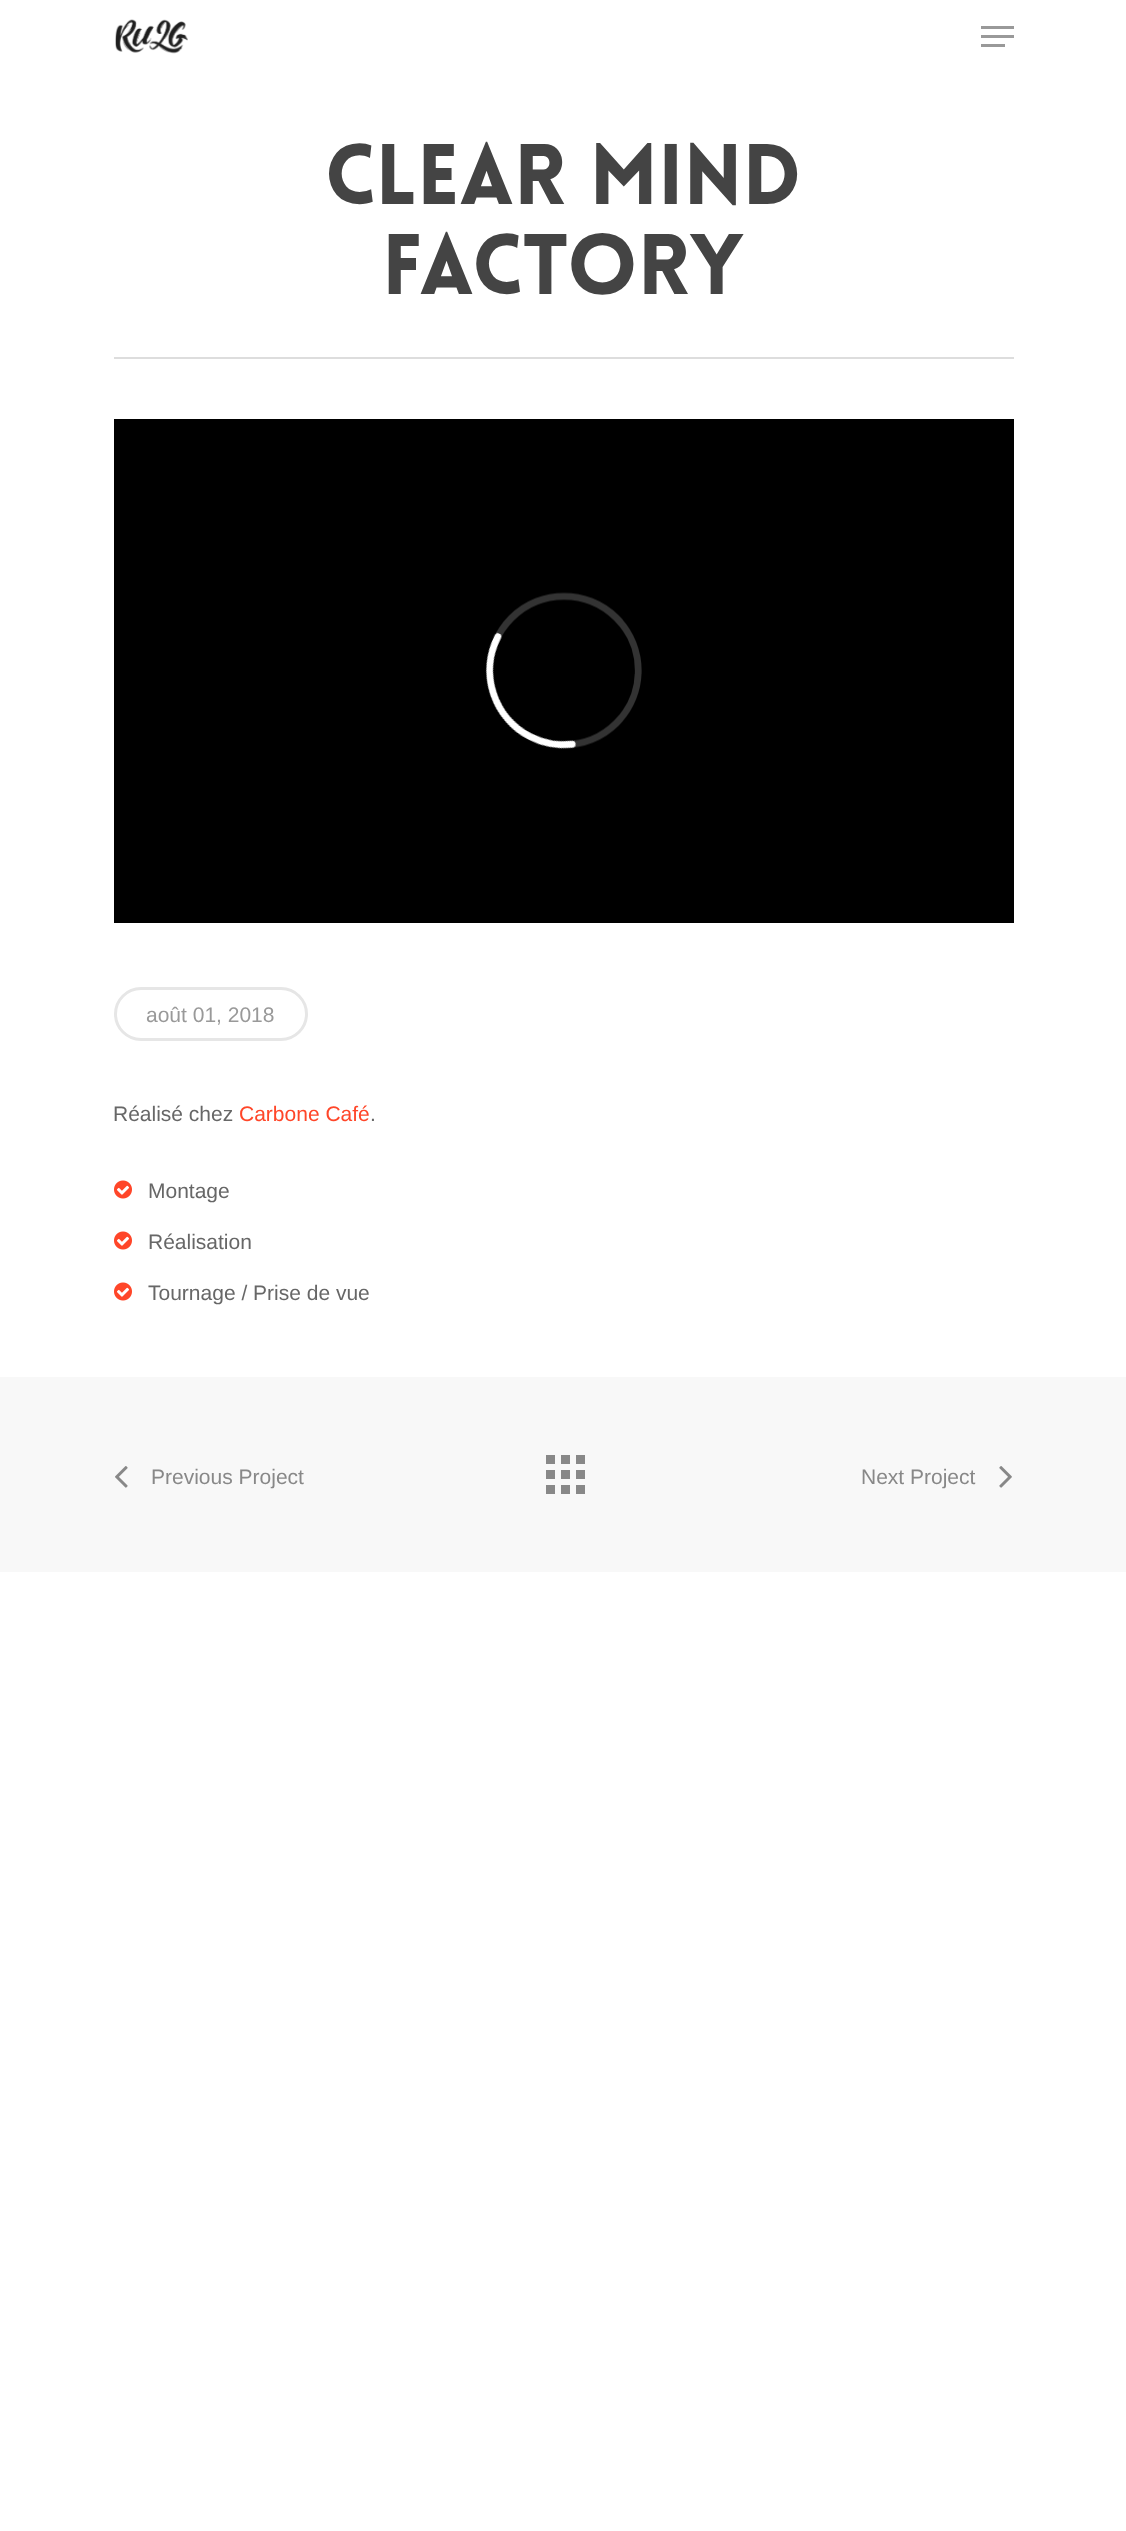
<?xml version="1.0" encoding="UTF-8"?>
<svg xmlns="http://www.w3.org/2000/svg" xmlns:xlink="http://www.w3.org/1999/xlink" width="1126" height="2531">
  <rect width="100%" height="100%" fill="#ffffff" />
  <image x="115" y="19" width="73" height="35" xlink:href="image1.png" />
  <rect x="981" y="26" width="33" height="3" fill="#999999" />
  <rect x="981" y="44" width="24" height="3" fill="#999999" />
  <rect x="981" y="35" width="33" height="3" fill="#999999" />
  <rect x="114" y="357" width="900" height="2" fill="#dddddd" />
  <image x="114" y="419" width="900" height="504" xlink:href="image2.png" />
  <rect x="115.5" y="988.5" width="191" height="51" rx="25.5" fill="none" stroke="#e6e6e6" stroke-width="3" />
  <image x="114" y="1180" width="18" height="19" xlink:href="image3.png" />
  <image x="114" y="1231" width="18" height="19" xlink:href="image3.png" />
  <image x="114" y="1282" width="18" height="19" xlink:href="image3.png" />
  <rect y="1377" width="1126" height="195" fill="#f8f8f8" />
  <rect x="576" y="1485" width="9" height="9" fill="#888888" />
  <rect x="561" y="1485" width="9" height="9" fill="#888888" />
  <rect x="546" y="1455" width="9" height="9" fill="#888888" />
  <rect x="561" y="1455" width="9" height="9" fill="#888888" />
  <rect x="576" y="1455" width="9" height="9" fill="#888888" />
  <rect x="576" y="1470" width="9" height="9" fill="#888888" />
  <rect x="546" y="1485" width="9" height="9" fill="#888888" />
  <rect x="546" y="1470" width="9" height="9" fill="#888888" />
  <rect x="561" y="1470" width="9" height="9" fill="#888888" />
  <image x="115" y="1466" width="13" height="22" xlink:href="image4.png" />
  <image x="999" y="1466" width="13" height="22" xlink:href="image5.png" />
  <text x="325" y="204" style="font-family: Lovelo; font-size: 84px; font-weight: 900; fill: #444444">Clear Mind</text>
  <text x="382" y="294" style="font-family: Lovelo; font-size: 84px; font-weight: 900; fill: #444444">Factory</text>
  <text x="146" y="1022" style="font-family: Liberation Sans; font-size: 21px; fill: #999999">août 01, 2018</text>
  <text x="113" y="1121" style="font-family: Liberation Sans; font-size: 21px; fill: #676767">Réalisé chez</text>
  <text x="239" y="1121" style="font-family: Liberation Sans; font-size: 21px; fill: #ff4629">Carbone Café</text>
  <text x="370" y="1121" style="font-family: Liberation Sans; font-size: 21px; fill: #676767">.</text>
  <text x="148" y="1198" style="font-family: Liberation Sans; font-size: 21px; fill: #676767">Montage</text>
  <text x="148" y="1249" style="font-family: Liberation Sans; font-size: 21px; fill: #676767">Réalisation</text>
  <text x="148" y="1300" style="font-family: Liberation Sans; font-size: 21px; fill: #676767">Tournage / Prise de vue</text>
  <text x="151" y="1484" style="font-family: Liberation Sans; font-size: 21px; fill: #888888">Previous Project</text>
  <text x="861" y="1484" style="font-family: Liberation Sans; font-size: 21px; fill: #888888">Next Project</text>
</svg>
